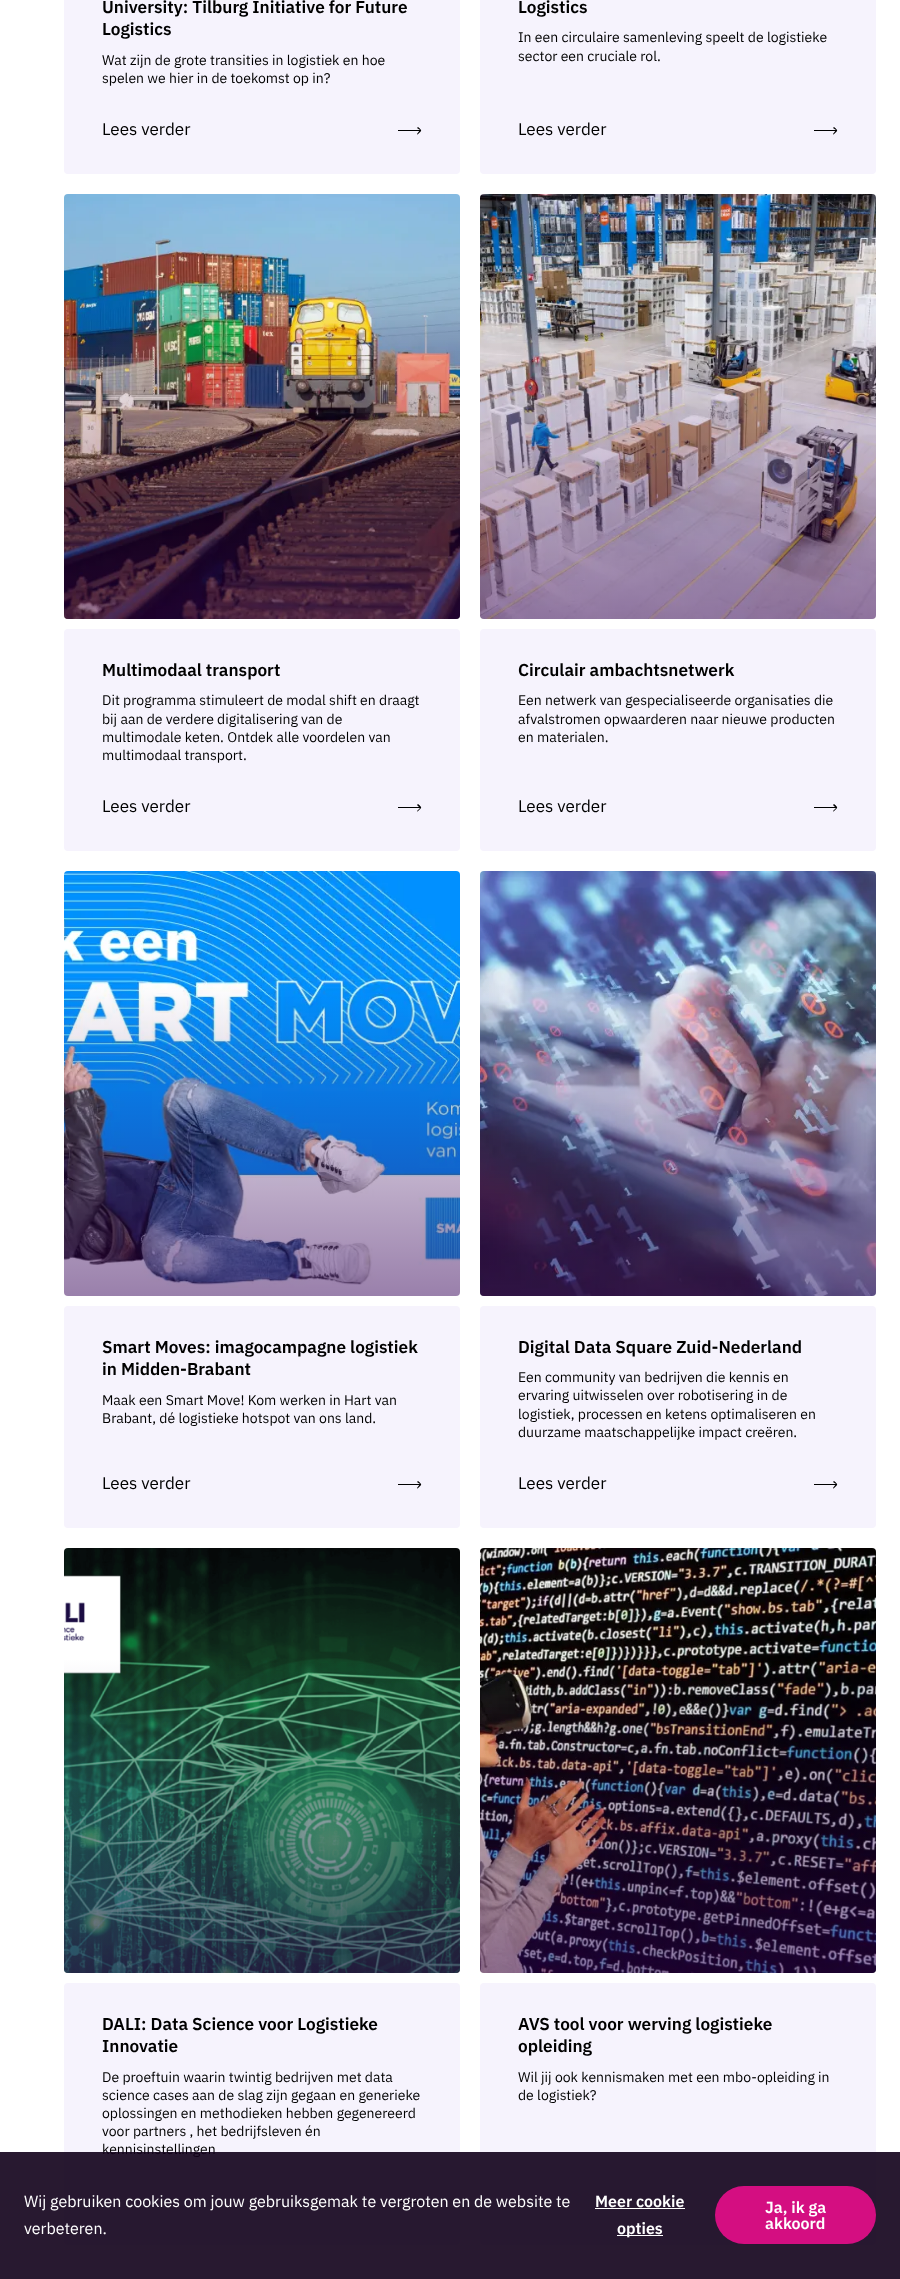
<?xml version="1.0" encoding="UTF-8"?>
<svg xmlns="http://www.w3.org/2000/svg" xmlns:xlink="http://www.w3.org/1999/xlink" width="900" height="2279">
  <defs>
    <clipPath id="clip1"><rect x="398" y="126" width="24" height="9" /></clipPath>
    <clipPath id="clip2"><rect x="814" y="126" width="24" height="9" /></clipPath>
    <linearGradient id="g1" gradientUnits="userSpaceOnUse" x1="262" y1="194" x2="262" y2="619"><stop offset="0.26" stop-color="#340057" stop-opacity="0" /><stop offset="1" stop-color="#340057" stop-opacity="0.5" /></linearGradient>
    <clipPath id="clip3"><rect x="398" y="803" width="24" height="9" /></clipPath>
    <linearGradient id="g2" gradientUnits="userSpaceOnUse" x1="678" y1="194" x2="678" y2="619"><stop offset="0.26" stop-color="#340057" stop-opacity="0" /><stop offset="1" stop-color="#340057" stop-opacity="0.5" /></linearGradient>
    <clipPath id="clip4"><rect x="814" y="803" width="24" height="9" /></clipPath>
    <linearGradient id="g3" gradientUnits="userSpaceOnUse" x1="262" y1="871" x2="262" y2="1296"><stop offset="0.26" stop-color="#340057" stop-opacity="0" /><stop offset="1" stop-color="#340057" stop-opacity="0.5" /></linearGradient>
    <clipPath id="clip5"><rect x="398" y="1480" width="24" height="9" /></clipPath>
    <linearGradient id="g4" gradientUnits="userSpaceOnUse" x1="678" y1="871" x2="678" y2="1296"><stop offset="0.26" stop-color="#340057" stop-opacity="0" /><stop offset="1" stop-color="#340057" stop-opacity="0.5" /></linearGradient>
    <clipPath id="clip6"><rect x="814" y="1480" width="24" height="9" /></clipPath>
    <linearGradient id="g5" gradientUnits="userSpaceOnUse" x1="262" y1="1548" x2="262" y2="1973"><stop offset="0.26" stop-color="#340057" stop-opacity="0" /><stop offset="1" stop-color="#340057" stop-opacity="0.5" /></linearGradient>
    <clipPath id="clip7"><rect x="398" y="2198" width="24" height="9" /></clipPath>
    <linearGradient id="g6" gradientUnits="userSpaceOnUse" x1="678" y1="1548" x2="678" y2="1973"><stop offset="0.26" stop-color="#340057" stop-opacity="0" /><stop offset="1" stop-color="#340057" stop-opacity="0.5" /></linearGradient>
    <linearGradient id="g7" gradientUnits="userSpaceOnUse" x1="554" y1="2215" x2="876" y2="2215"><stop offset="0" stop-color="#5072bc" /><stop offset="0.12" stop-color="#872181" /><stop offset="0.25" stop-color="#b30c76" /><stop offset="0.38" stop-color="#b30c76" /><stop offset="0.5" stop-color="#d40e81" /><stop offset="1" stop-color="#d40e81" /></linearGradient>
  </defs>
  <rect width="100%" height="100%" fill="#ffffff" />
  <rect x="64" y="-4" width="396" height="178" rx="4" fill="#f6f3fd" />
  <g clip-path="url(#clip1)">
    <path d="M 421 131 c 1 -1 -3 -4 -3 -4 l -1 1 l 3 2 l -3 4 c 0 2 3 -2 4 -3 z m -47 0 h 47 v -1 h -47 z" fill="#000000" />
  </g>
  <rect x="480" y="-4" width="396" height="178" rx="4" fill="#f6f3fd" />
  <g clip-path="url(#clip2)">
    <path d="M 837 131 c 1 -1 -3 -4 -3 -4 l -1 1 l 3 2 l -3 4 c 0 2 3 -2 4 -3 z m -47 0 h 47 v -1 h -47 z" fill="#000000" />
  </g>
  <image x="64" y="194" width="396" height="425" xlink:href="image1.png" />
  <rect x="64" y="194" width="396" height="425" rx="4" fill="url(#g1)" />
  <rect x="64" y="629" width="396" height="222" rx="4" fill="#f6f3fd" />
  <g clip-path="url(#clip3)">
    <path d="M 421 808 c 1 -1 -3 -4 -3 -4 l -1 1 l 3 3 l -3 3 c 0 2 3 -2 4 -3 z m -47 0 h 47 v -1 h -47 z" fill="#000000" />
  </g>
  <image x="480" y="194" width="396" height="425" xlink:href="image2.png" />
  <rect x="480" y="194" width="396" height="425" rx="4" fill="url(#g2)" />
  <rect x="480" y="629" width="396" height="222" rx="4" fill="#f6f3fd" />
  <g clip-path="url(#clip4)">
    <path d="M 837 808 c 1 -1 -3 -4 -3 -4 l -1 1 l 3 3 l -3 3 c 0 2 3 -2 4 -3 z m -47 0 h 47 v -1 h -47 z" fill="#000000" />
  </g>
  <image x="64" y="871" width="396" height="417" xlink:href="image3.png" />
  <rect x="64" y="871" width="396" height="425" rx="4" fill="url(#g3)" />
  <rect x="64" y="1306" width="396" height="222" rx="4" fill="#f6f3fd" />
  <g clip-path="url(#clip5)">
    <path d="M 421 1485 c 1 -1 -3 -4 -3 -4 l -1 1 l 3 2 l -3 4 c 0 2 3 -2 4 -3 z m -47 0 h 47 v -1 h -47 z" fill="#000000" />
  </g>
  <image x="480" y="871" width="396" height="425" xlink:href="image4.png" />
  <rect x="480" y="871" width="396" height="425" rx="4" fill="url(#g4)" />
  <rect x="480" y="1306" width="396" height="222" rx="4" fill="#f6f3fd" />
  <g clip-path="url(#clip6)">
    <path d="M 837 1485 c 1 -1 -3 -4 -3 -4 l -1 1 l 3 2 l -3 4 c 0 2 3 -2 4 -3 z m -47 0 h 47 v -1 h -47 z" fill="#000000" />
  </g>
  <image x="64" y="1548" width="396" height="425" xlink:href="image5.png" />
  <rect x="64" y="1548" width="396" height="425" rx="4" fill="url(#g5)" />
  <rect x="64" y="1983" width="396" height="262" rx="4" fill="#f6f3fd" />
  <g clip-path="url(#clip7)">
    <path d="M 421 2203 c 1 -1 -3 -4 -3 -4 l -1 1 l 3 2 l -3 4 c 0 2 3 -2 4 -3 z m -47 0 h 47 v -1 h -47 z" fill="#000000" />
  </g>
  <image x="480" y="1548" width="396" height="425" xlink:href="image6.png" />
  <rect x="480" y="1548" width="396" height="425" rx="4" fill="url(#g6)" />
  <rect x="480" y="1983" width="396" height="262" rx="4" fill="#f6f3fd" />
  <text x="102" y="13" style="font-family: IBM Plex Sans; font-size: 17.2px; font-weight: 600; fill: #000000">University: Tilburg Initiative for Future</text>
  <text x="102" y="35" style="font-family: IBM Plex Sans; font-size: 17.2px; font-weight: 600; fill: #000000">Logistics</text>
  <text x="102" y="65" style="font-family: IBM Plex Sans; font-size: 14px; fill: #000000">Wat zijn de grote transities in logistiek en hoe</text>
  <text x="102" y="83" style="font-family: IBM Plex Sans; font-size: 14px; fill: #000000">spelen we hier in de toekomst op in?</text>
  <text x="102" y="135" style="font-family: IBM Plex Sans; font-size: 17px; fill: #000000">Lees verder</text>
  <text x="518" y="13" style="font-family: IBM Plex Sans; font-size: 17.2px; font-weight: 600; fill: #000000">Logistics</text>
  <text x="518" y="42" style="font-family: IBM Plex Sans; font-size: 14px; fill: #000000">In een circulaire samenleving speelt de logistieke</text>
  <text x="518" y="61" style="font-family: IBM Plex Sans; font-size: 14px; fill: #000000">sector een cruciale rol.</text>
  <text x="518" y="135" style="font-family: IBM Plex Sans; font-size: 17px; fill: #000000">Lees verder</text>
  <text x="102" y="676" style="font-family: IBM Plex Sans; font-size: 17.2px; font-weight: 600; fill: #000000">Multimodaal transport</text>
  <text x="102" y="705" style="font-family: IBM Plex Sans; font-size: 14px; fill: #000000">Dit programma stimuleert de modal shift en draagt</text>
  <text x="102" y="724" style="font-family: IBM Plex Sans; font-size: 14px; fill: #000000">bij aan de verdere digitalisering van de</text>
  <text x="102" y="742" style="font-family: IBM Plex Sans; font-size: 14px; fill: #000000">multimodale keten. Ontdek alle voordelen van</text>
  <text x="102" y="760" style="font-family: IBM Plex Sans; font-size: 14px; fill: #000000">multimodaal transport.</text>
  <text x="102" y="812" style="font-family: IBM Plex Sans; font-size: 17px; fill: #000000">Lees verder</text>
  <text x="518" y="676" style="font-family: IBM Plex Sans; font-size: 17.2px; font-weight: 600; fill: #000000">Circulair ambachtsnetwerk</text>
  <text x="518" y="705" style="font-family: IBM Plex Sans; font-size: 14px; fill: #000000">Een netwerk van gespecialiseerde organisaties die</text>
  <text x="518" y="724" style="font-family: IBM Plex Sans; font-size: 14px; fill: #000000">afvalstromen opwaarderen naar nieuwe producten</text>
  <text x="518" y="742" style="font-family: IBM Plex Sans; font-size: 14px; fill: #000000">en materialen.</text>
  <text x="518" y="812" style="font-family: IBM Plex Sans; font-size: 17px; fill: #000000">Lees verder</text>
  <text x="102" y="1353" style="font-family: IBM Plex Sans; font-size: 17.2px; font-weight: 600; fill: #000000">Smart Moves: imagocampagne logistiek</text>
  <text x="102" y="1375" style="font-family: IBM Plex Sans; font-size: 17.2px; font-weight: 600; fill: #000000">in Midden-Brabant</text>
  <text x="102" y="1405" style="font-family: IBM Plex Sans; font-size: 14px; fill: #000000">Maak een Smart Move! Kom werken in Hart van</text>
  <text x="102" y="1423" style="font-family: IBM Plex Sans; font-size: 14px; fill: #000000">Brabant, dé logistieke hotspot van ons land.</text>
  <text x="102" y="1489" style="font-family: IBM Plex Sans; font-size: 17px; fill: #000000">Lees verder</text>
  <text x="518" y="1353" style="font-family: IBM Plex Sans; font-size: 17.2px; font-weight: 600; fill: #000000">Digital Data Square Zuid-Nederland</text>
  <text x="518" y="1382" style="font-family: IBM Plex Sans; font-size: 14px; fill: #000000">Een community van bedrijven die kennis en</text>
  <text x="518" y="1400" style="font-family: IBM Plex Sans; font-size: 14px; fill: #000000">ervaring uitwisselen over robotisering in de</text>
  <text x="518" y="1419" style="font-family: IBM Plex Sans; font-size: 14px; fill: #000000">logistiek, processen en ketens optimaliseren en</text>
  <text x="518" y="1437" style="font-family: IBM Plex Sans; font-size: 14px; fill: #000000">duurzame maatschappelijke impact creëren.</text>
  <text x="518" y="1489" style="font-family: IBM Plex Sans; font-size: 17px; fill: #000000">Lees verder</text>
  <text x="102" y="2030" style="font-family: IBM Plex Sans; font-size: 17.2px; font-weight: 600; fill: #000000">DALI: Data Science voor Logistieke</text>
  <text x="102" y="2052" style="font-family: IBM Plex Sans; font-size: 17.2px; font-weight: 600; fill: #000000">Innovatie</text>
  <text x="102" y="2082" style="font-family: IBM Plex Sans; font-size: 14px; fill: #000000">De proeftuin waarin twintig bedrijven met data</text>
  <text x="102" y="2100" style="font-family: IBM Plex Sans; font-size: 14px; fill: #000000">science cases aan de slag zijn gegaan en generieke</text>
  <text x="102" y="2118" style="font-family: IBM Plex Sans; font-size: 14px; fill: #000000">oplossingen en methodieken hebben gegenereerd</text>
  <text x="102" y="2136" style="font-family: IBM Plex Sans; font-size: 14px; fill: #000000">voor partners , het bedrijfsleven én</text>
  <text x="102" y="2154" style="font-family: IBM Plex Sans; font-size: 14px; fill: #000000">kennisinstellingen</text>
  <text x="518" y="2030" style="font-family: IBM Plex Sans; font-size: 17.2px; font-weight: 600; fill: #000000">AVS tool voor werving logistieke</text>
  <text x="518" y="2052" style="font-family: IBM Plex Sans; font-size: 17.2px; font-weight: 600; fill: #000000">opleiding</text>
  <text x="518" y="2082" style="font-family: IBM Plex Sans; font-size: 14px; fill: #000000">Wil jij ook kennismaken met een mbo-opleiding in</text>
  <text x="518" y="2100" style="font-family: IBM Plex Sans; font-size: 14px; fill: #000000">de logistiek?</text>
  <rect y="2152" width="900" height="127" fill="#110019" fill-opacity="0.9" />
  <text x="24" y="2207" style="font-family: IBM Plex Sans; font-size: 16px; fill: #ffffff">Wij gebruiken cookies om jouw gebruiksgemak te vergroten en de website te</text>
  <text x="595" y="2207" style="font-family: IBM Plex Sans; font-size: 16px; font-weight: 600; fill: #ffffff">Meer cookie</text>
  <rect x="595" y="2208" width="90" height="1" fill="#ffffff" />
  <rect x="617" y="2235" width="46" height="1" fill="#ffffff" />
  <text x="617" y="2234" style="font-family: IBM Plex Sans; font-size: 16px; font-weight: 600; fill: #ffffff">opties</text>
  <rect x="715" y="2186" width="161" height="58" rx="29" fill="url(#g7)" />
  <text x="765" y="2213" style="font-family: IBM Plex Sans; font-size: 16px; font-weight: 600; fill: #ffffff">Ja, ik ga</text>
  <text x="765" y="2229" style="font-family: IBM Plex Sans; font-size: 16px; font-weight: 600; fill: #ffffff">akkoord</text>
  <text x="24" y="2234" style="font-family: IBM Plex Sans; font-size: 16px; fill: #ffffff">verbeteren.</text>
</svg>
